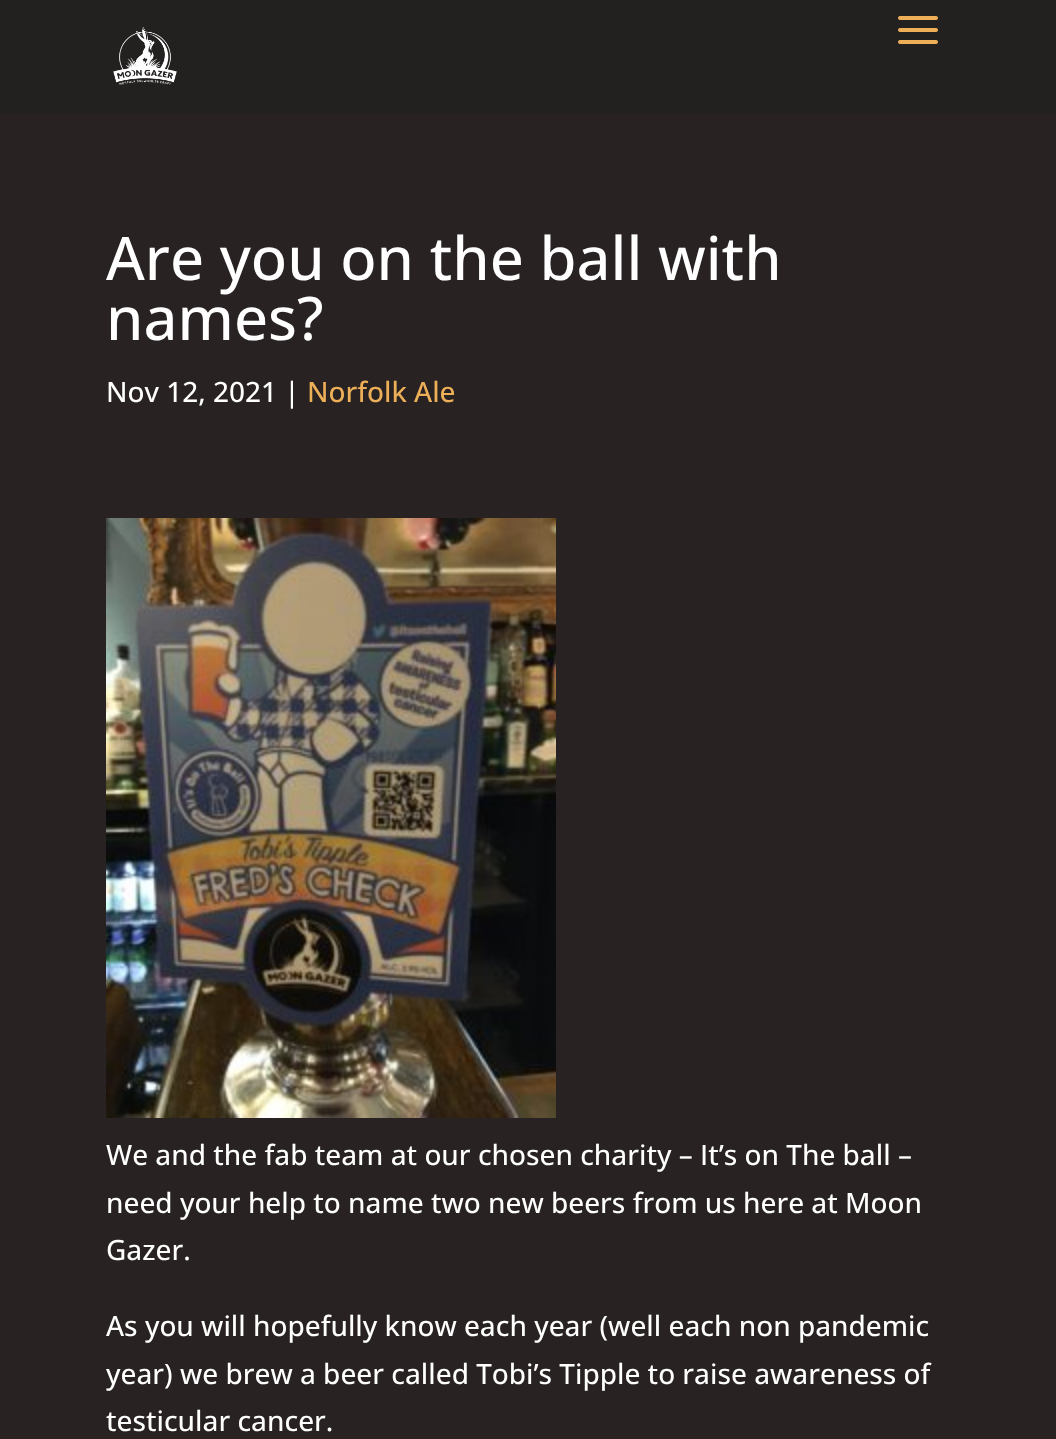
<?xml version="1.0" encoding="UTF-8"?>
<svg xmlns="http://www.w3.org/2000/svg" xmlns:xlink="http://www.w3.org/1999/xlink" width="1056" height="1439">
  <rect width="100%" height="100%" fill="#232020" />
  <image x="113" y="27" width="64" height="58" xlink:href="image1.png" />
  <image x="898" y="16" width="40" height="28" xlink:href="image2.png" />
  <rect y="114" width="1056" height="1325" fill="#282222" />
  <image x="106" y="518" width="450" height="600" xlink:href="image3.png" />
  <text x="106" y="280" style="font-family: Open Sans; font-size: 60px; font-weight: 500; fill: #ffffff">Are you on the ball with</text>
  <text x="106" y="340" style="font-family: Open Sans; font-size: 60px; font-weight: 500; fill: #ffffff">names?</text>
  <text x="106" y="402" style="font-family: Open Sans; font-size: 28px; font-weight: 500; fill: #ffffff">Nov 12, 2021 |</text>
  <text x="307" y="402" style="font-family: Open Sans; font-size: 28px; font-weight: 500; fill: #edb059">Norfolk Ale</text>
  <text x="106" y="1165" style="font-family: Open Sans; font-size: 28px; font-weight: 500; fill: #ffffff">We and the fab team at our chosen charity – It’s on The ball –</text>
  <text x="106" y="1213" style="font-family: Open Sans; font-size: 28px; font-weight: 500; fill: #ffffff">need your help to name two new beers from us here at Moon</text>
  <text x="106" y="1260" style="font-family: Open Sans; font-size: 28px; font-weight: 500; fill: #ffffff">Gazer.</text>
  <text x="106" y="1336" style="font-family: Open Sans; font-size: 28px; font-weight: 500; fill: #ffffff">As you will hopefully know each year (well each non pandemic</text>
  <text x="106" y="1384" style="font-family: Open Sans; font-size: 28px; font-weight: 500; fill: #ffffff">year) we brew a beer called Tobi’s Tipple to raise awareness of</text>
  <text x="106" y="1431" style="font-family: Open Sans; font-size: 28px; font-weight: 500; fill: #ffffff">testicular cancer.</text>
</svg>
